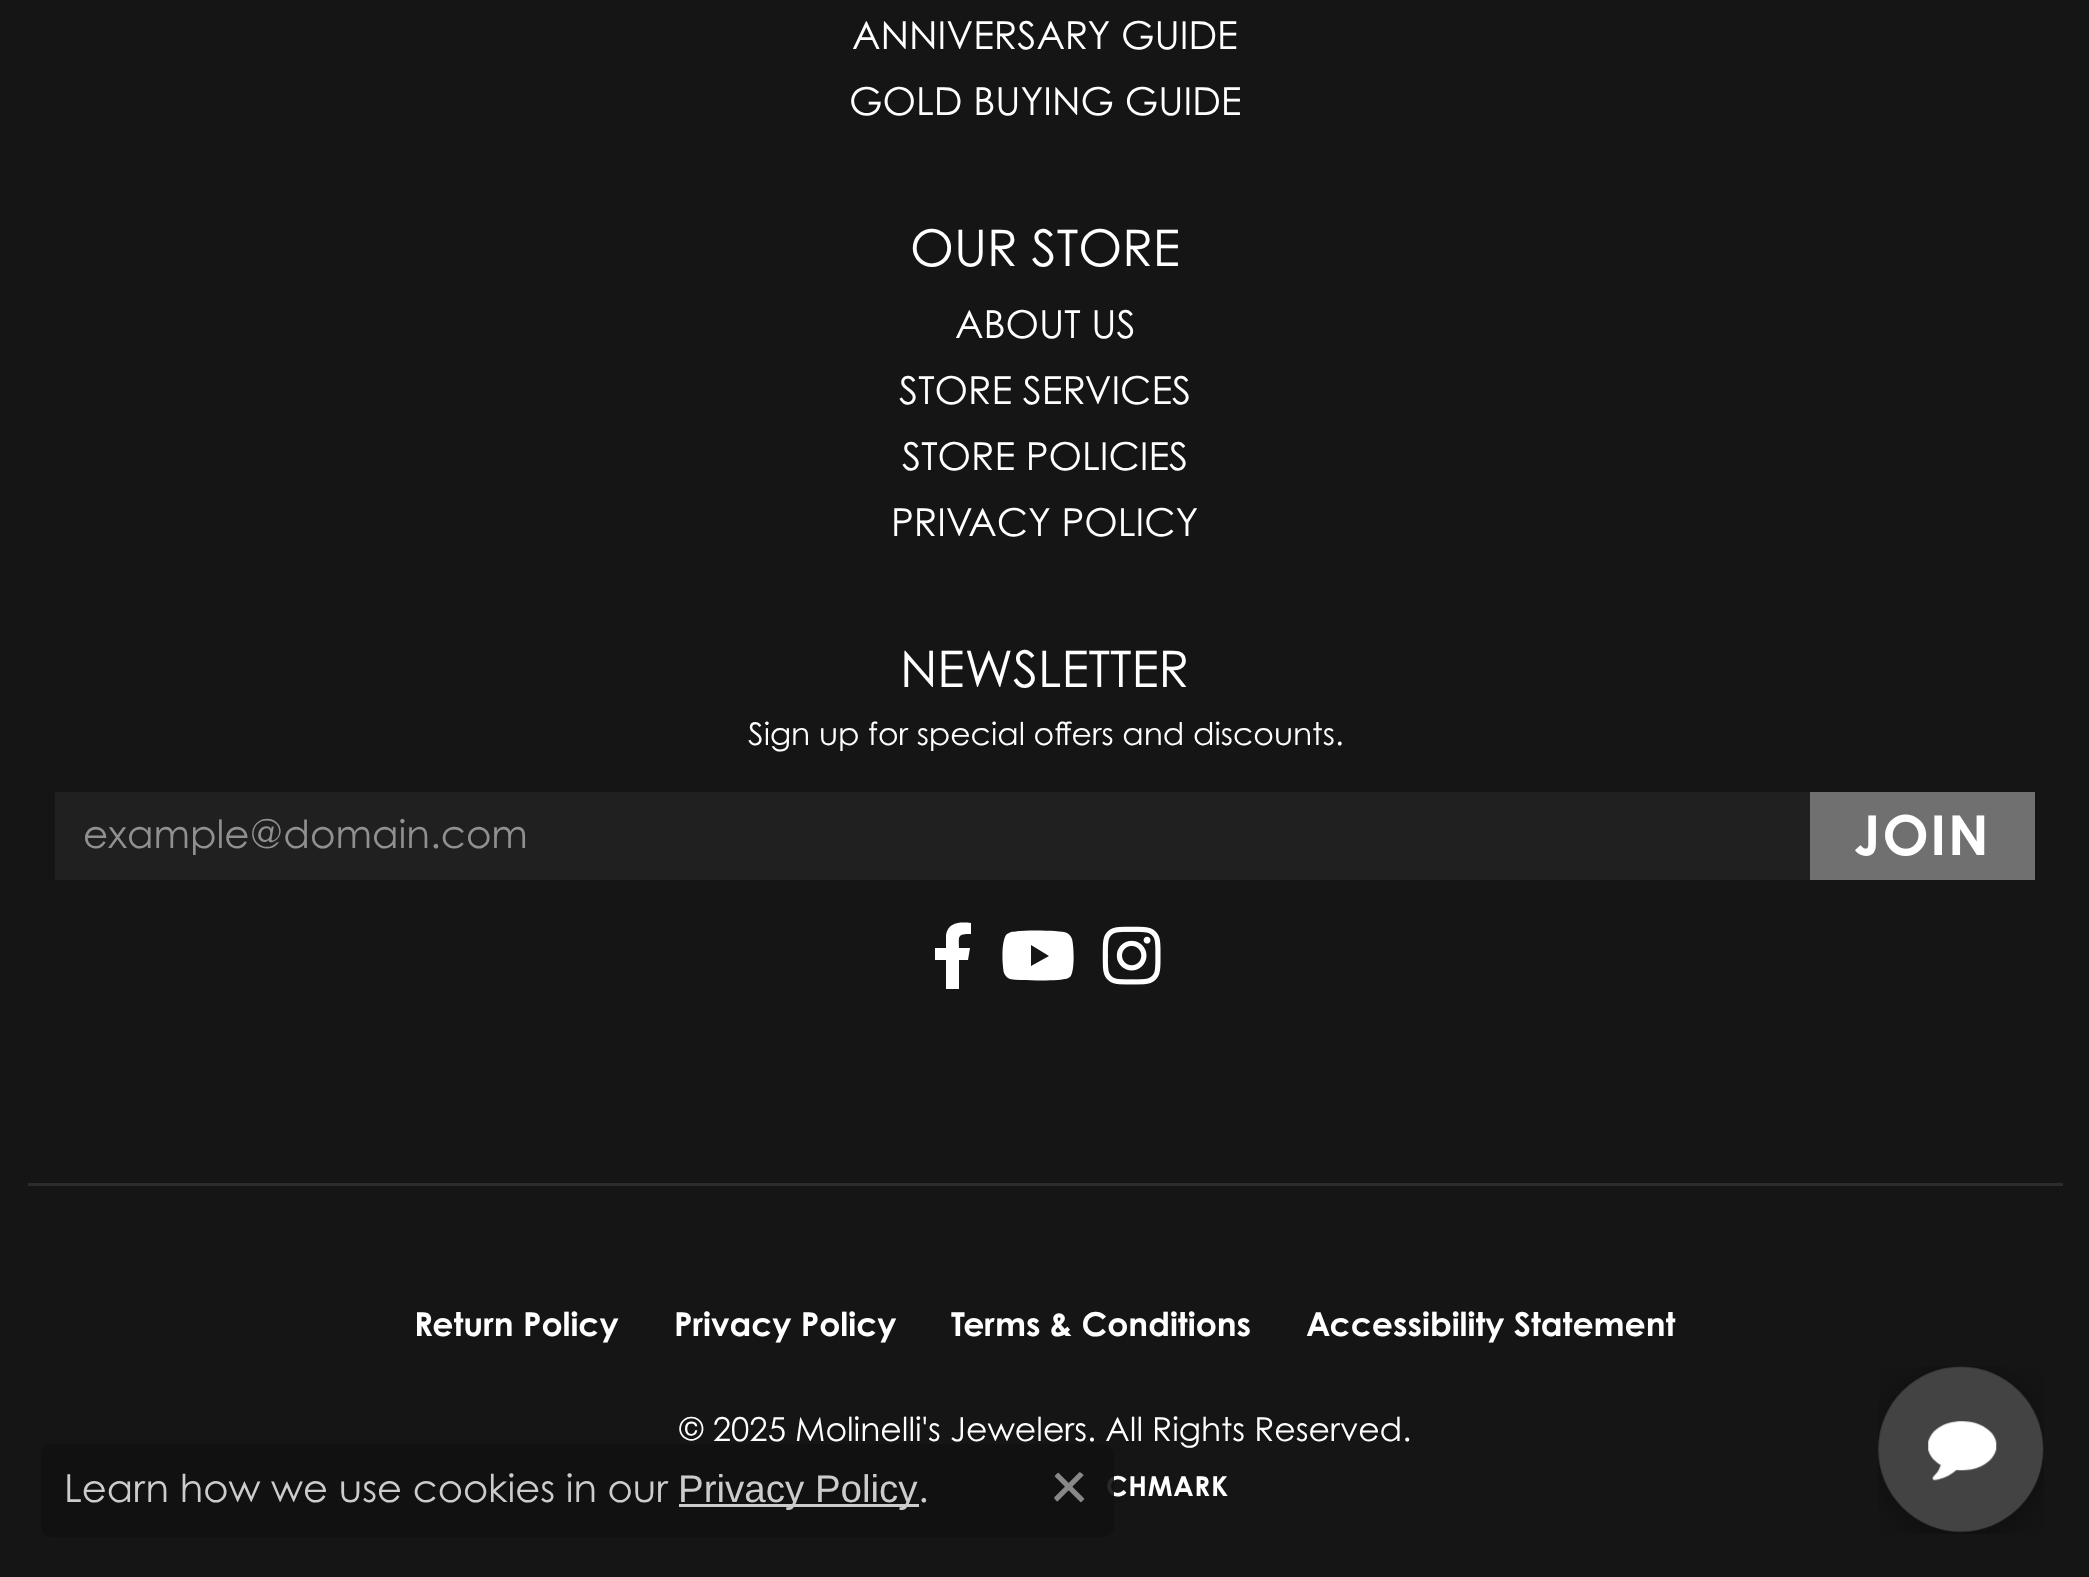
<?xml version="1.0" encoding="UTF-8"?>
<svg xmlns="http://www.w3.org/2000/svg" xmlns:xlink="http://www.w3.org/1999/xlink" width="2089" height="1577">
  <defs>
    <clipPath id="clip1"><rect x="83" y="809" width="1729" height="46" /></clipPath>
  </defs>
  <rect width="100%" height="100%" fill="#151515" />
  <rect x="55" y="792" width="1755" height="88" fill="#202020" />
  <rect x="1810" y="792" width="225" height="88" fill="#707070" />
  <path d="M 968 960 l 2 -12 h -11 c 0 -12 -2 -14 12 -14 v -11 c -11 -1 -23 -1 -25 12 v 13 h -11 v 12 h 11 v 29 h 13 v -29 z" fill="#ffffff" />
  <path d="M 1072 939 c -1 -3 -3 -5 -5 -6 c -7 -3 -48 -3 -56 -1 l -4 2 c -6 5 -5 31 -3 39 c 1 2 3 5 6 6 c 7 2 47 2 55 0 c 2 0 3 -1 5 -2 c 5 -5 4 -31 2 -38 z m -41 27 v -21 l 18 11 z" fill="#ffffff" />
  <image x="1102" y="926" width="59" height="59" xlink:href="image1.png" />
  <rect x="28" y="1183" width="2035" height="3" fill="#2c2c2c" />
  <image x="1878" y="1366" width="166" height="168" xlink:href="image3.png" />
  <text x="852" y="49" style="font-family: Century Gothic; font-size: 38.5px; fill: #ffffff">ANNIVERSARY GUIDE</text>
  <text x="849" y="115" style="font-family: Century Gothic; font-size: 38.5px; fill: #ffffff">GOLD BUYING GUIDE</text>
  <text x="910" y="266" style="font-family: Century Gothic; font-size: 50.5px; fill: #ffffff">OUR STORE</text>
  <text x="955" y="338" style="font-family: Century Gothic; font-size: 38.5px; fill: #ffffff">ABOUT US</text>
  <text x="899" y="404" style="font-family: Century Gothic; font-size: 38.5px; fill: #ffffff">STORE SERVICES</text>
  <text x="902" y="470" style="font-family: Century Gothic; font-size: 38.5px; fill: #ffffff">STORE POLICIES</text>
  <text x="891" y="536" style="font-family: Century Gothic; font-size: 38.5px; fill: #ffffff">PRIVACY POLICY</text>
  <text x="900" y="687" style="font-family: Century Gothic; font-size: 50.5px; fill: #ffffff">NEWSLETTER</text>
  <text x="748" y="745" style="font-family: Century Gothic; font-size: 31.4px; fill: #ffffff">Sign up for special offers and discounts.</text>
  <g clip-path="url(#clip1)">
    <text x="83" y="848" style="font-family: Century Gothic; font-size: 38.9px; fill: #909090">example@domain.com</text>
  </g>
  <text x="1854" y="855" style="font-family: Century Gothic; font-size: 55px; font-weight: bold; letter-spacing: 2px; fill: #ffffff">JOIN</text>
  <text x="414" y="1336" style="font-family: Century Gothic; font-size: 33px; font-weight: bold; fill: #ffffff">Return Policy</text>
  <text x="674" y="1336" style="font-family: Century Gothic; font-size: 33px; font-weight: bold; fill: #ffffff">Privacy Policy</text>
  <text x="951" y="1336" style="font-family: Century Gothic; font-size: 33px; font-weight: bold; fill: #ffffff">Terms &amp; Conditions</text>
  <text x="1306" y="1336" style="font-family: Century Gothic; font-size: 33px; font-weight: bold; fill: #ffffff">Accessibility Statement</text>
  <text x="679" y="1441" style="font-family: Century Gothic; font-size: 33px; fill: #ffffff">© 2025 Molinelli's Jewelers. All Rights Reserved.</text>
  <text x="1106" y="1496" style="font-family: Century Gothic; font-size: 27.5px; font-weight: bold; letter-spacing: 0.75px; fill: #ffffff">CHMARK</text>
  <rect x="41" y="1444" width="1073" height="93" rx="11" fill="#111111" fill-opacity="0.9" />
  <text x="64" y="1502" style="font-family: Century Gothic; font-size: 38.5px; fill: #cccccc">Learn how we use cookies in our</text>
  <rect x="679" y="1504" width="240" height="3" fill="#cccccc" />
  <text x="678" y="1502" style="font-family: Liberation Sans; font-size: 38.5px; fill: #cccccc">Privacy Policy</text>
  <text x="918" y="1502" style="font-family: Century Gothic; font-size: 38.5px; fill: #cccccc">.</text>
  <image x="1054" y="1472" width="31" height="31" xlink:href="image2.png" />
</svg>
